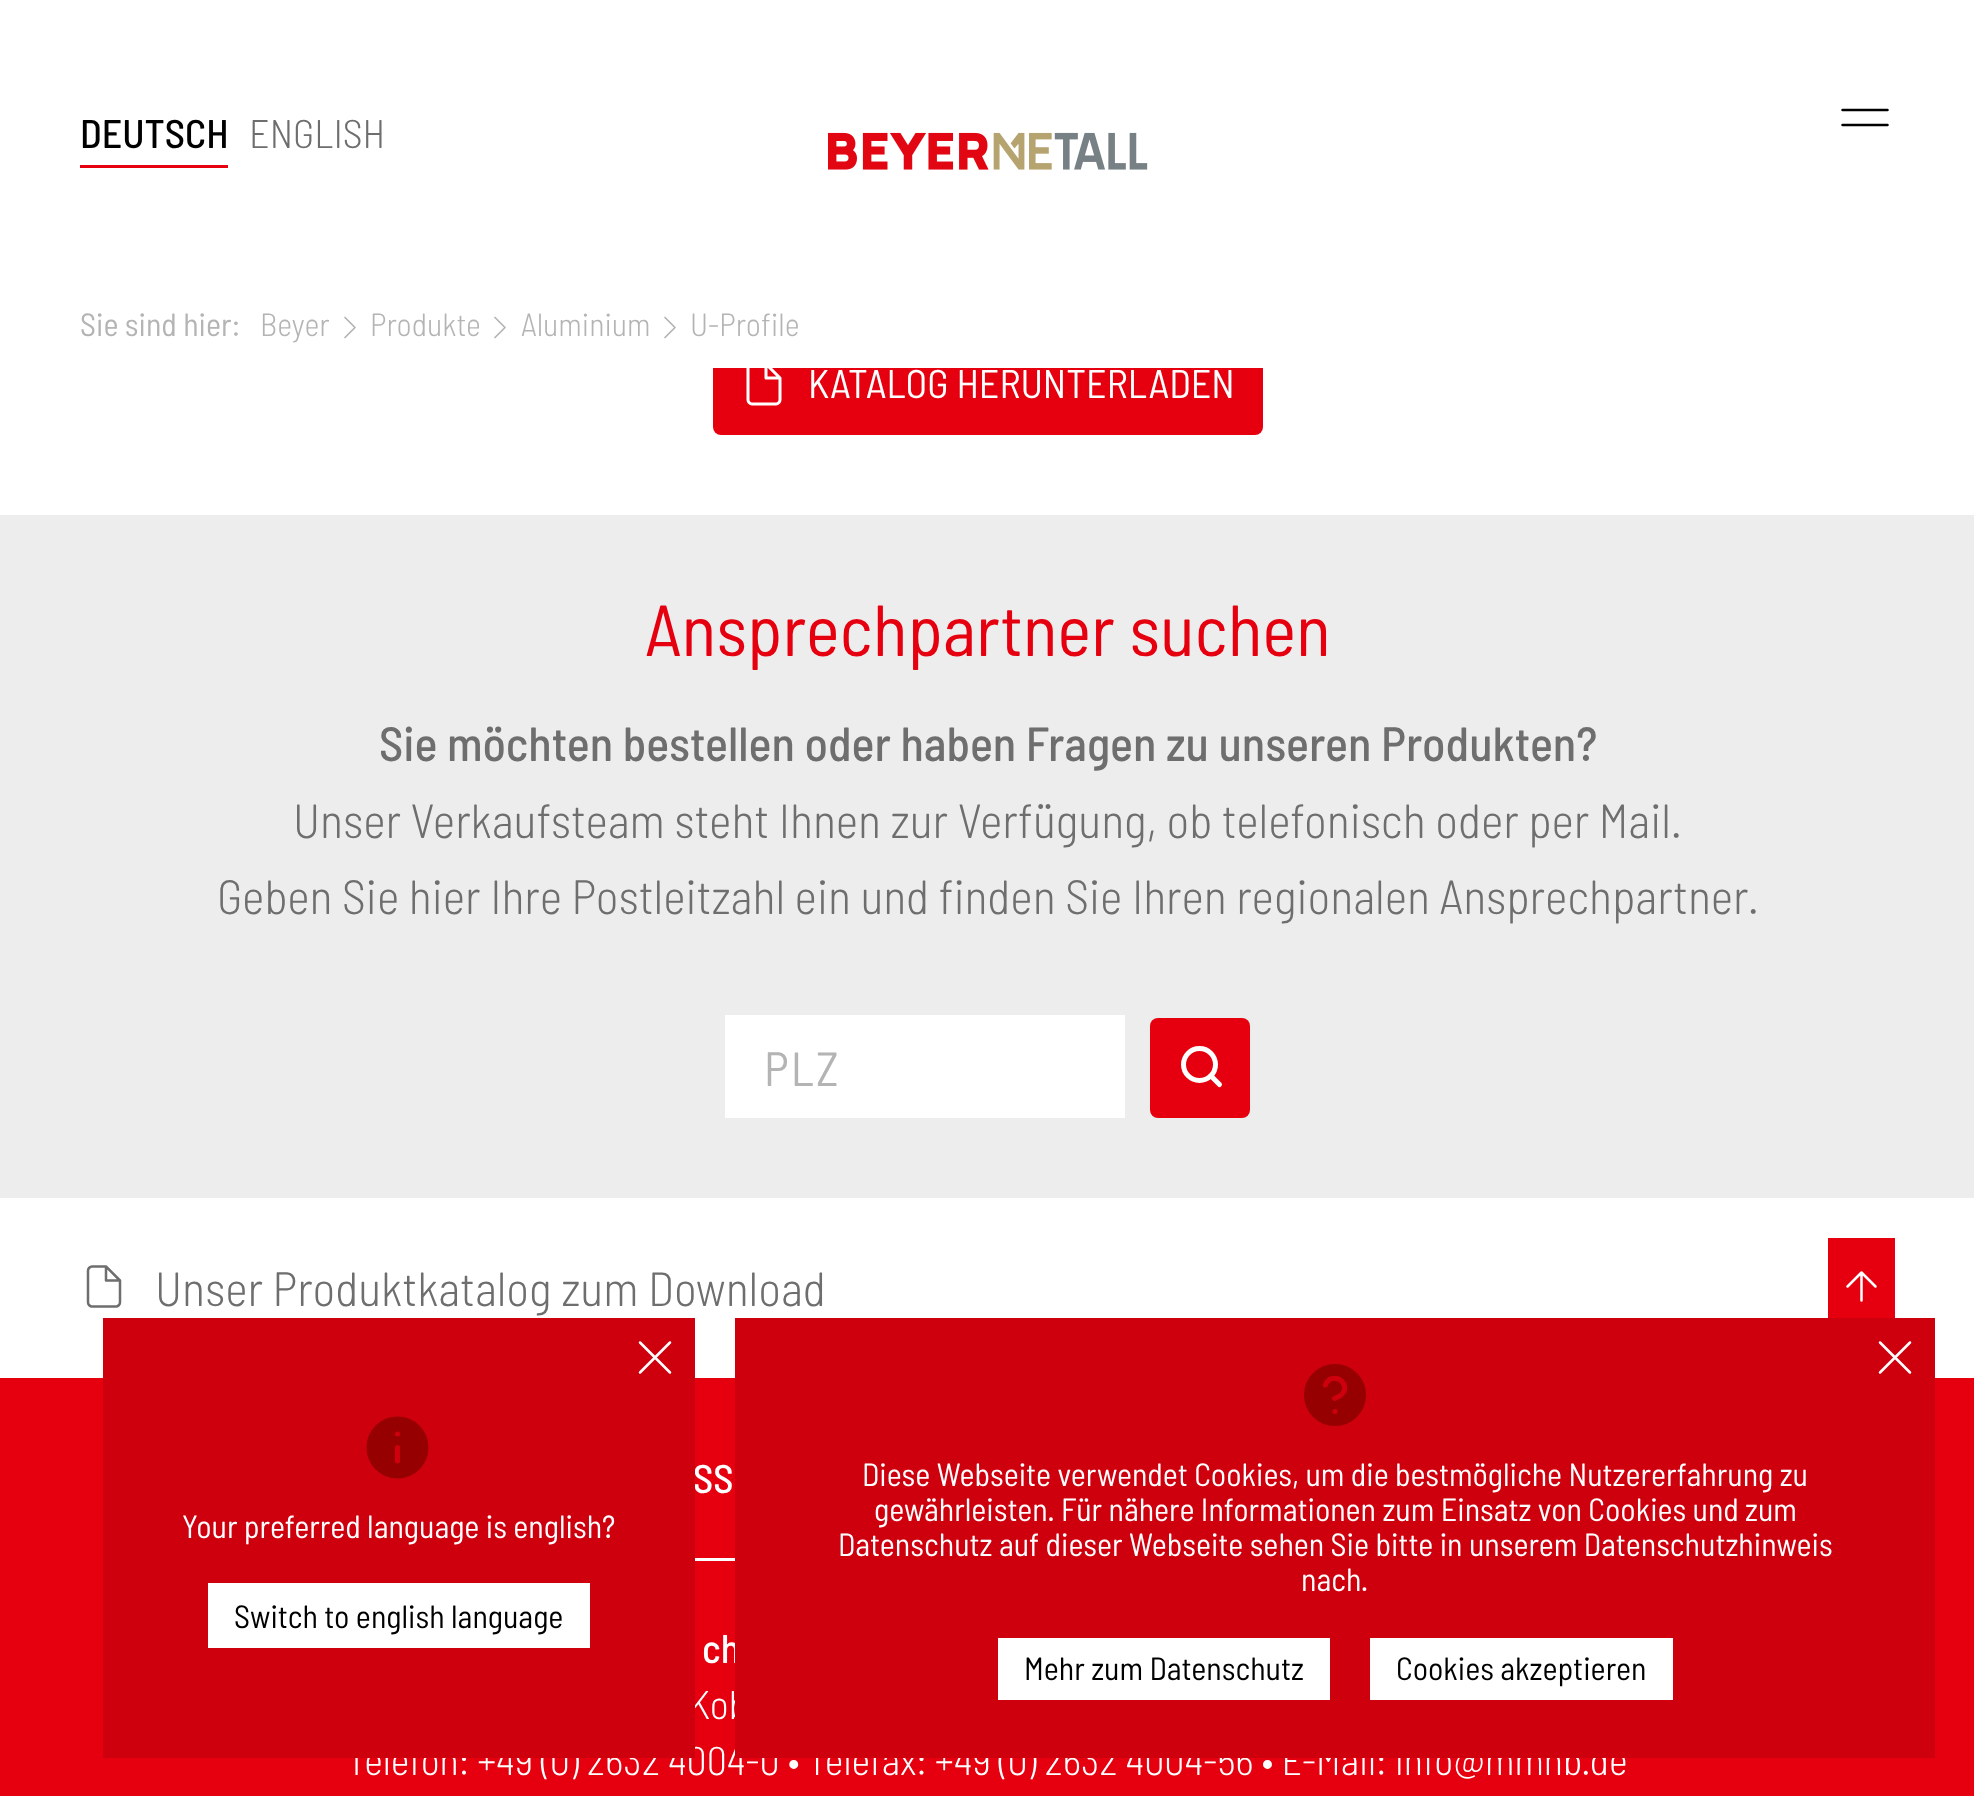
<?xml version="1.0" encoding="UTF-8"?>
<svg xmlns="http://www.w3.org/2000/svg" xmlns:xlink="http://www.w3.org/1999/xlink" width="1974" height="1796">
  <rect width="100%" height="100%" fill="#ffffff" />
  <rect x="713" y="333" width="550" height="102" rx="8" fill="#e6000f" />
  <path d="M 766 364 h -14 c -2 0 -4 2 -4 4 v 32 c 0 2 2 4 4 4 h 24 c 2 0 4 -2 4 -4 v -22 z m 0 0 v 14 h 14" fill="none" stroke="#ffffff" stroke-width="3" stroke-linecap="round" stroke-linejoin="round" />
  <rect x="713" y="333" width="550" height="35" fill="#ffffff" />
  <rect x="80" y="165" width="148" height="3" fill="#e6000f" />
  <image x="828" y="132" width="320" height="38" xlink:href="image1.png" />
  <path d="M 1842.5 125 h 45 m -45 -15 h 45" fill="none" stroke="#000000" stroke-width="2.5" stroke-linecap="round" stroke-linejoin="round" />
  <path d="M 345 337.5 l 10 -10 l -10 -10" fill="none" stroke="#b4b4b4" stroke-width="1.7" stroke-linecap="round" stroke-linejoin="round" />
  <path d="M 495 337.5 l 10 -10 l -10 -10" fill="none" stroke="#b4b4b4" stroke-width="1.7" stroke-linecap="round" stroke-linejoin="round" />
  <path d="M 665 337.5 l 10 -10 l -10 -10" fill="none" stroke="#b4b4b4" stroke-width="1.7" stroke-linecap="round" stroke-linejoin="round" />
  <rect y="515" width="1974" height="683" fill="#ededed" />
  <rect x="725" y="1015" width="400" height="103" fill="#ffffff" />
  <rect x="1150" y="1018" width="100" height="100" rx="8" fill="#e6000f" />
  <circle cx="1199.5" cy="1064.5" r="16" fill="none" stroke="#ffffff" stroke-width="5" />
  <path d="M 1219.5 1084.5 l -8.5 -8.5" fill="none" stroke="#ffffff" stroke-width="5" stroke-linecap="round" stroke-linejoin="round" />
  <path d="M 106 1266.5 h -14 c -2 0 -4 2 -4 4 v 32 c 0 2 2 4 4 4 h 24 c 2 0 4 -2 4 -4 v -22 z m 0 0 v 14 h 14" fill="none" stroke="#6e6e6e" stroke-width="2.5" stroke-linecap="round" stroke-linejoin="round" />
  <rect x="1828" y="1238" width="67" height="80" fill="#e6000f" />
  <path d="M 1861.5 1300.5 v -28 m -14 14 l 14 -14 l 14 14" fill="none" stroke="#ffffff" stroke-width="2.5" stroke-linecap="round" stroke-linejoin="round" />
  <rect y="1378" width="1974" height="418" fill="#e6000f" />
  <rect x="695" y="1558" width="40" height="3" fill="#ffffff" />
  <text x="80" y="148" style="font-family: Barlow Semi Condensed; font-size: 40px; font-weight: 500; fill: #000000">DEUTSCH</text>
  <text x="249" y="148" style="font-family: Barlow Semi Condensed; font-size: 40px; font-weight: 300; fill: #6e6e6e">ENGLISH</text>
  <text x="80" y="336" style="font-family: Barlow Semi Condensed; font-size: 32px; fill: #b4b4b4">Sie sind hier:</text>
  <text x="260" y="336" style="font-family: Barlow Semi Condensed; font-size: 32px; font-weight: 300; fill: #b4b4b4">Beyer</text>
  <text x="370" y="336" style="font-family: Barlow Semi Condensed; font-size: 32px; font-weight: 300; fill: #b4b4b4">Produkte</text>
  <text x="521" y="336" style="font-family: Barlow Semi Condensed; font-size: 32px; font-weight: 300; fill: #b4b4b4">Aluminium</text>
  <text x="690" y="336" style="font-family: Barlow Semi Condensed; font-size: 32px; font-weight: 300; fill: #b4b4b4">U-Profile</text>
  <text x="808" y="398" style="font-family: Barlow Semi Condensed; font-size: 40px; fill: #ffffff">KATALOG HERUNTERLADEN</text>
  <text x="645" y="656" style="font-family: Barlow Semi Condensed; font-size: 72px; fill: #e6000f">Ansprechpartner suchen</text>
  <text x="379" y="761" style="font-family: Barlow Semi Condensed; font-size: 48px; font-weight: 500; fill: #6e6e6e">Sie möchten bestellen oder haben Fragen zu unseren Produkten?</text>
  <text x="293" y="838" style="font-family: Barlow Semi Condensed; font-size: 48px; font-weight: 300; fill: #6e6e6e">Unser Verkaufsteam steht Ihnen zur Verfügung, ob telefonisch oder per Mail.</text>
  <text x="217" y="914" style="font-family: Barlow Semi Condensed; font-size: 48px; font-weight: 300; fill: #6e6e6e">Geben Sie hier Ihre Postleitzahl ein und finden Sie Ihren regionalen Ansprechpartner.</text>
  <text x="764" y="1086" style="font-family: Barlow Semi Condensed; font-size: 48px; letter-spacing: 2px; fill: #b4b4b4">PLZ</text>
  <text x="155" y="1306" style="font-family: Barlow Semi Condensed; font-size: 48px; font-weight: 300; fill: #6e6e6e">Unser Produktkatalog zum Download</text>
  <text x="693" y="1493" style="font-family: Barlow Semi Condensed; font-size: 40px; font-weight: 500; fill: #ffffff">SS</text>
  <text x="702" y="1663" style="font-family: Barlow Semi Condensed; font-size: 40px; font-weight: 500; fill: #ffffff">ch</text>
  <text x="689" y="1719" style="font-family: Barlow Semi Condensed; font-size: 40px; font-weight: 300; fill: #ffffff">Kob</text>
  <text x="347" y="1775" style="font-family: Barlow Semi Condensed; font-size: 40px; font-weight: 300; fill: #ffffff">Telefon: +49 (0) 2632 4004-0 • Telefax: +49 (0) 2632 4004-56 • E-Mail: info@mmhb.de</text>
  <rect x="735" y="1318" width="1200" height="440" fill="#cf000e" />
  <path d="M 1910 1342.5 l -30 30 m 0 -30 l 30 30" fill="none" stroke="#ffffff" stroke-width="2.5" stroke-linecap="round" stroke-linejoin="round" />
  <circle cx="1335" cy="1395" r="33.5" fill="#960000" stroke="#cf000e" stroke-width="5" />
  <path d="M 1325.5 1385 c 0.5 -2 2 -4 4 -5.5 c 12 -6.5 24.5 12.5 5 19 m 0.5 13 h 0" fill="none" stroke="#cf000e" stroke-width="5" stroke-linecap="round" stroke-linejoin="round" />
  <rect x="1370" y="1638" width="303" height="62" fill="#ffffff" />
  <text x="1396" y="1680" style="font-family: Barlow Semi Condensed; font-size: 32px; fill: #000000">Cookies akzeptieren</text>
  <rect x="998" y="1638" width="332" height="62" fill="#ffffff" />
  <text x="1024" y="1680" style="font-family: Barlow Semi Condensed; font-size: 32px; fill: #000000">Mehr zum Datenschutz</text>
  <text x="1301" y="1591" style="font-family: Barlow Semi Condensed; font-size: 32px; fill: #ffffff">nach.</text>
  <text x="838" y="1556" style="font-family: Barlow Semi Condensed; font-size: 32px; fill: #ffffff">Datenschutz auf dieser Webseite sehen Sie bitte in unserem Datenschutzhinweis</text>
  <text x="874" y="1521" style="font-family: Barlow Semi Condensed; font-size: 32px; fill: #ffffff">gewährleisten. Für nähere Informationen zum Einsatz von Cookies und zum</text>
  <text x="862" y="1486" style="font-family: Barlow Semi Condensed; font-size: 32px; fill: #ffffff">Diese Webseite verwendet Cookies, um die bestmögliche Nutzererfahrung zu</text>
  <rect x="103" y="1318" width="592" height="440" fill="#cf000e" />
  <path d="M 670 1342.5 l -30 30 m 0 -30 l 30 30" fill="none" stroke="#ffffff" stroke-width="2.5" stroke-linecap="round" stroke-linejoin="round" />
  <circle cx="397.5" cy="1447.5" r="33.5" fill="#960000" stroke="#cf000e" stroke-width="5" />
  <path d="M 397.5 1461 v -13.5 m 0 -13.5 h 0" fill="none" stroke="#cf000e" stroke-width="5" stroke-linecap="round" stroke-linejoin="round" />
  <rect x="208" y="1583" width="382" height="65" fill="#ffffff" />
  <text x="234" y="1628" style="font-family: Barlow Semi Condensed; font-size: 32px; fill: #000000">Switch to english language</text>
  <text x="182" y="1538" style="font-family: Barlow Semi Condensed; font-size: 32px; fill: #ffffff">Your preferred language is english?</text>
</svg>
